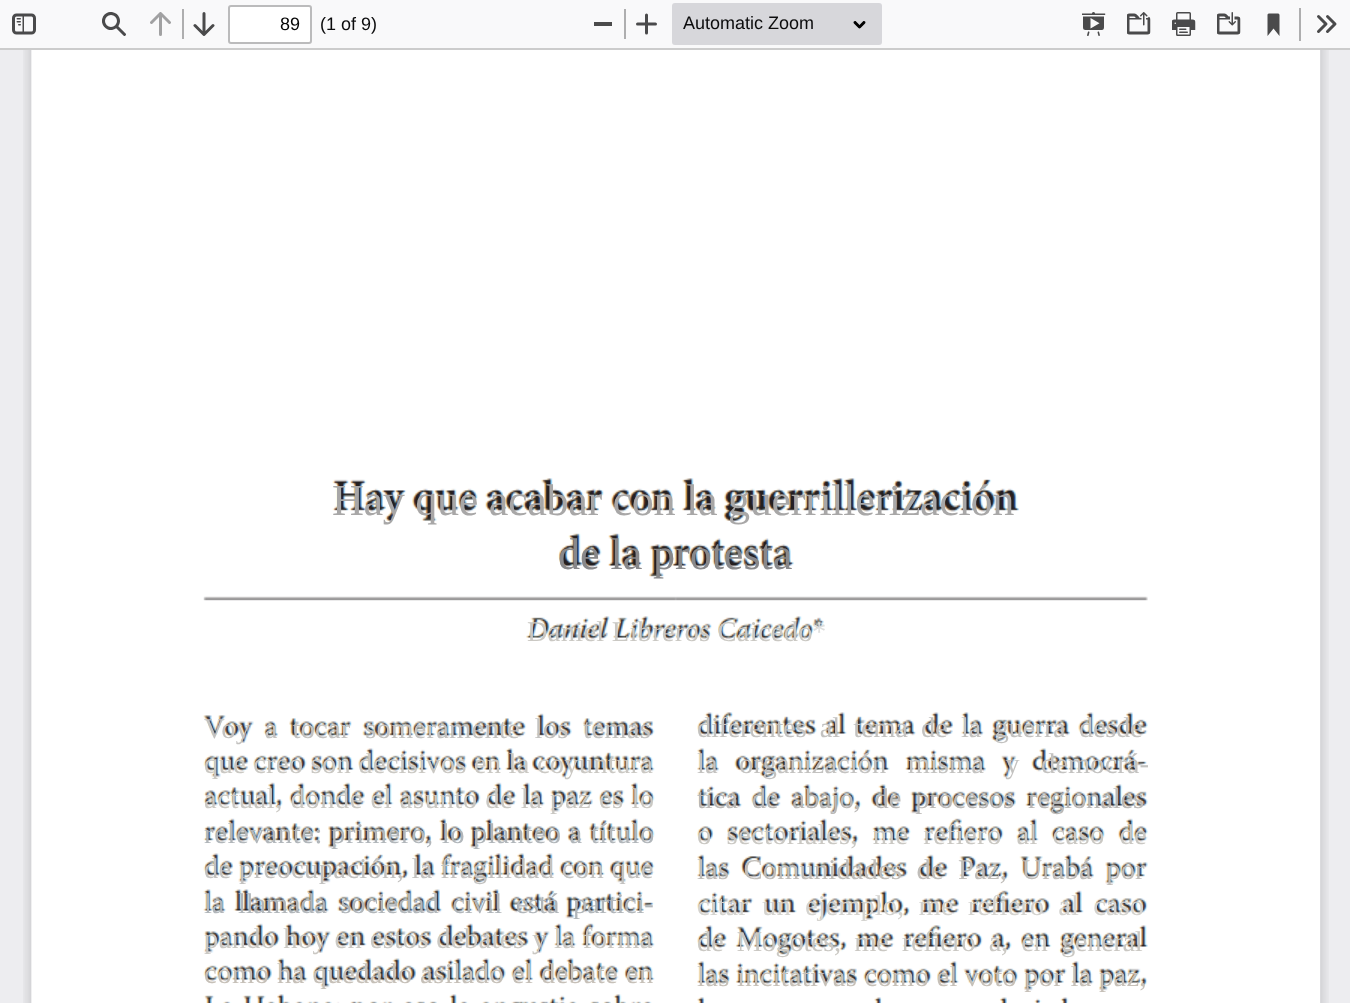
<?xml version="1.0" encoding="UTF-8"?>
<svg xmlns="http://www.w3.org/2000/svg" xmlns:xlink="http://www.w3.org/1999/xlink" width="1350" height="1003">
  <rect width="100%" height="100%" fill="#ededf0" />
  <rect y="48" width="1350" height="2" fill="#cccccc" />
  <rect width="1350" height="48" fill="#f9f9fa" />
  <image x="12" y="13" width="24" height="22" xlink:href="image1.png" />
  <image x="102" y="12" width="24" height="24" xlink:href="image2.png" />
  <image x="150" y="12" width="21" height="24" xlink:href="image3.png" />
  <rect x="182" y="9" width="2" height="30" fill="#aeaeaf" />
  <image x="193" y="12" width="22" height="24" xlink:href="image4.png" />
  <rect x="229" y="6" width="82" height="37" rx="2" fill="#ffffff" stroke="#bbbbbc" stroke-width="2" />
  <rect x="594" y="22" width="18" height="4" fill="#4b4b4b" />
  <rect x="624" y="9" width="2" height="30" fill="#aeaeaf" />
  <image x="636" y="13" width="21" height="22" xlink:href="image5.png" />
  <rect x="672" y="3" width="210" height="42" rx="3" fill="#d7d7db" />
  <image x="853" y="21" width="13" height="8" xlink:href="image6.png" />
  <image x="1082" y="12" width="24" height="24" xlink:href="image7.png" />
  <image x="1127" y="12" width="24" height="23" xlink:href="image8.png" />
  <image x="1172" y="12" width="24" height="24" xlink:href="image9.png" />
  <image x="1217" y="12" width="24" height="23" xlink:href="image10.png" />
  <image x="1267" y="13" width="13" height="23" xlink:href="image11.png" />
  <rect x="1299" y="8" width="2" height="33" fill="#aeaeaf" />
  <image x="1317" y="15" width="20" height="18" xlink:href="image12.png" />
  <image x="23" y="50" width="1306" height="953" xlink:href="image13.png" />
  <image x="31" y="50" width="1289" height="953" xlink:href="image14.png" />
  <text x="280" y="30" style="font-family: Liberation Sans; font-size: 18px; fill: #060606">89</text>
  <text x="320" y="30" style="font-family: Liberation Sans; font-size: 18px; fill: #0c0c0d">(1 of 9)</text>
  <text x="683" y="29" style="font-family: Liberation Sans; font-size: 18px; fill: #0c0c0d">Automatic Zoom</text>
  <text x="332" y="515" style="font-family: Liberation Serif; font-size: 44.2px; letter-spacing: -0.35px; fill: #a8a7a7">Hay que acabar con la guerrillerización</text>
  <text x="558" y="569" style="font-family: Liberation Serif; font-size: 44.2px; letter-spacing: -0.1px; fill: #88888a">de la protesta</text>
  <text x="527" y="641" style="font-family: Liberation Serif; font-size: 28.6px; letter-spacing: 0.2px; fill: #cac8c3">Daniel Libreros Caicedo</text>
  <text x="812" y="641" style="font-family: Liberation Serif; font-size: 28.6px; fill: #dedfde">*</text>
  <text x="204" y="738" style="font-family: Liberation Serif; font-size: 28.6px; letter-spacing: 0.2px; fill: #c3c2c0" xml:space="preserve">Voy  a  tocar  someramente  los  temas</text>
  <text x="697" y="737" style="font-family: Liberation Serif; font-size: 28.6px; letter-spacing: -0.35px; fill: #c3c2c0" xml:space="preserve">diferentes  al  tema  de  la  guerra  desde</text>
  <text x="204" y="773" style="font-family: Liberation Serif; font-size: 28.6px; letter-spacing: 0.2px; fill: #cac8c3">que creo son decisivos en la coyuntura</text>
  <text x="697" y="773" style="font-family: Liberation Serif; font-size: 28.6px; fill: #c3c2c0" xml:space="preserve">la   organización   misma   y   democrá-</text>
  <text x="204" y="808" style="font-family: Liberation Serif; font-size: 28.6px; letter-spacing: 0.5px; fill: #cac8c3">actual, donde el asunto de la paz es lo</text>
  <text x="697" y="808" style="font-family: Liberation Serif; font-size: 28.6px; letter-spacing: -0.15px; fill: #bab8b6" xml:space="preserve">tica  de  abajo,  de  procesos  regionales</text>
  <text x="204" y="843" style="font-family: Liberation Serif; font-size: 28.6px; letter-spacing: 0.65px; fill: #b1b6ba">relevante: primero, lo planteo a título</text>
  <text x="697" y="844" style="font-family: Liberation Serif; font-size: 28.6px; letter-spacing: 0.3px; fill: #cac8c3" xml:space="preserve">o  sectoriales,  me  refiero  al  caso  de</text>
  <text x="204" y="878" style="font-family: Liberation Serif; font-size: 28.6px; letter-spacing: 0.3px; fill: #c3c2c0">de preocupación, la fragilidad con que</text>
  <text x="697" y="879" style="font-family: Liberation Serif; font-size: 28.6px; letter-spacing: 0.1px; fill: #c0bdb9" xml:space="preserve">las  Comunidades  de  Paz,  Urabá  por</text>
  <text x="204" y="913" style="font-family: Liberation Serif; font-size: 28.6px; letter-spacing: -0.25px; fill: #b1b6ba" xml:space="preserve">la  llamada  sociedad  civil  está  partici-</text>
  <text x="697" y="915" style="font-family: Liberation Serif; font-size: 28.6px; fill: #d4d3cf" xml:space="preserve">citar  un  ejemplo,  me  refiero  al  caso</text>
  <text x="204" y="948" style="font-family: Liberation Serif; font-size: 28.6px; letter-spacing: 0.35px; fill: #cac8c3">pando hoy en estos debates y la forma</text>
  <text x="697" y="951" style="font-family: Liberation Serif; font-size: 28.6px; letter-spacing: -0.4px; fill: #cac8c3" xml:space="preserve">de  Mogotes,  me  refiero  a,  en  general</text>
  <text x="204" y="983" style="font-family: Liberation Serif; font-size: 28.6px; letter-spacing: 0.45px; fill: #c6c0b8">como ha quedado asilado el debate en</text>
  <text x="697" y="986" style="font-family: Liberation Serif; font-size: 28.6px; letter-spacing: 0.25px; fill: #c6c0b8">las incitativas como el voto por la paz,</text>
</svg>
